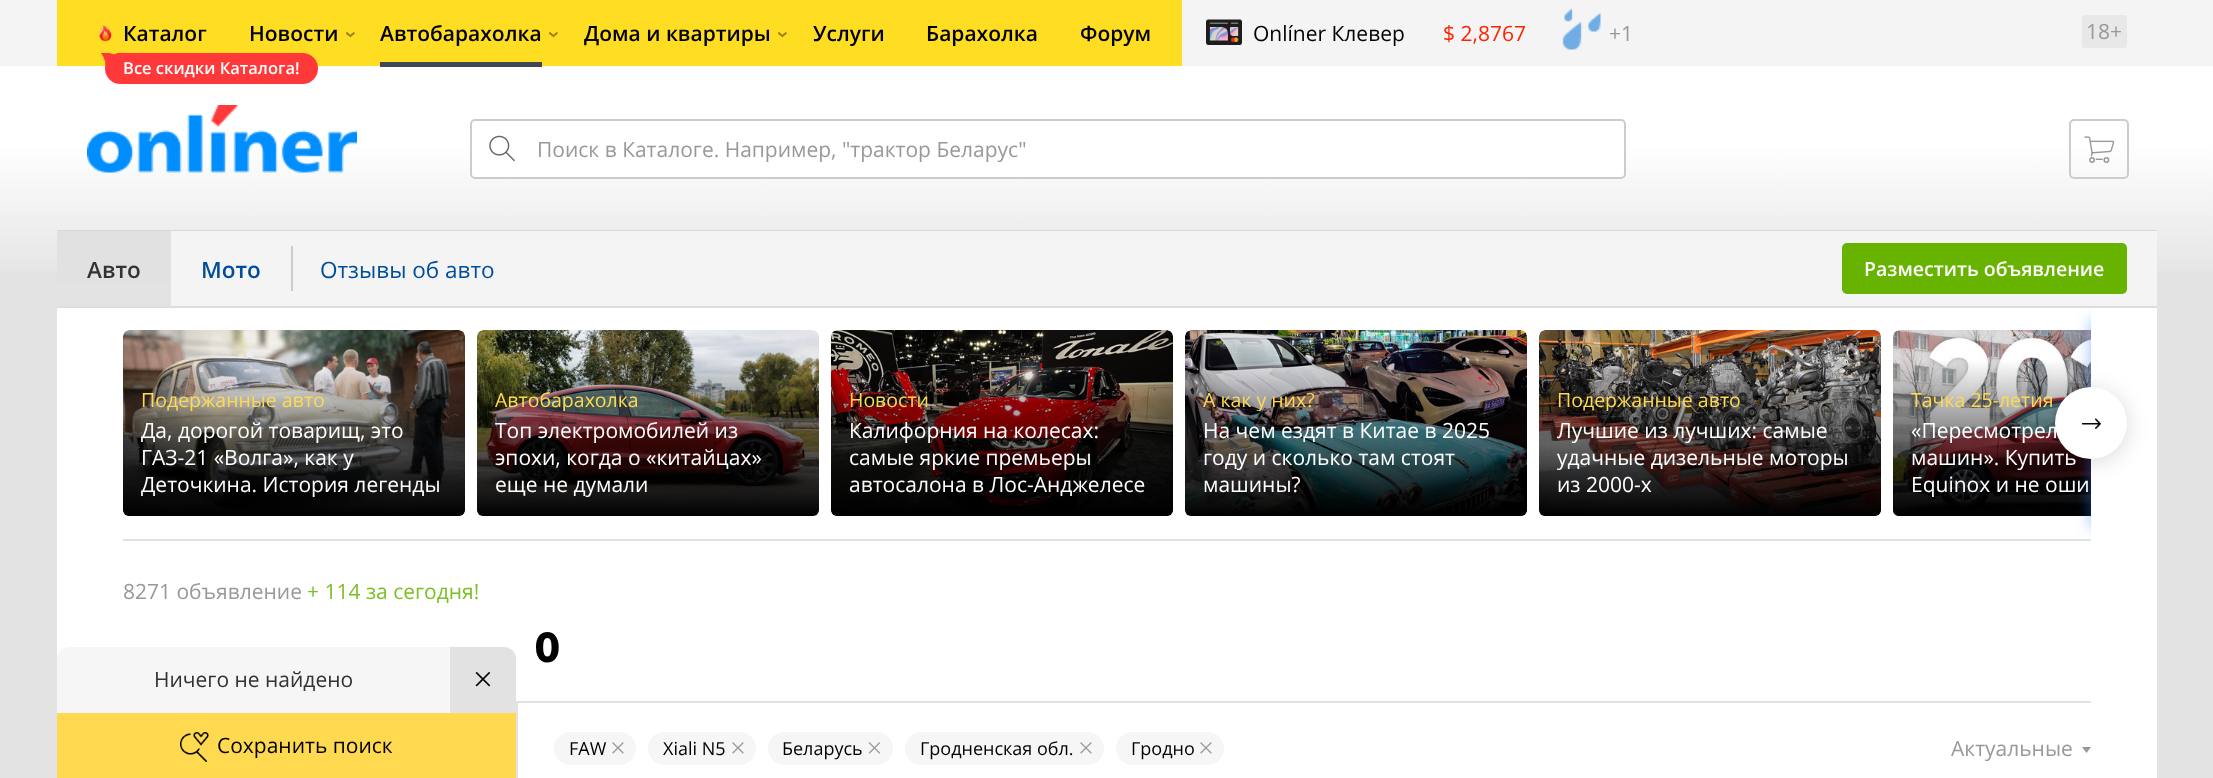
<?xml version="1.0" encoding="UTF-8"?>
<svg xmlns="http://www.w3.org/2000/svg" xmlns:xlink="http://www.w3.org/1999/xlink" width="2213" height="778">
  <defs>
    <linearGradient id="g1" gradientUnits="userSpaceOnUse" x1="1107" y1="0" x2="1107" y2="285"><stop offset="0" stop-color="#ffffff" /><stop offset="0.5" stop-color="#ffffff" /><stop offset="1" stop-color="#e3e3e3" /></linearGradient>
    <linearGradient id="g2" gradientUnits="userSpaceOnUse" x1="294" y1="330" x2="294" y2="516"><stop offset="0" stop-color="#000000" stop-opacity="0" /><stop offset="0.16" stop-color="#000000" stop-opacity="0" /><stop offset="1" stop-color="#000000" /></linearGradient>
    <linearGradient id="g3" gradientUnits="userSpaceOnUse" x1="648" y1="330" x2="648" y2="516"><stop offset="0" stop-color="#000000" stop-opacity="0" /><stop offset="0.16" stop-color="#000000" stop-opacity="0" /><stop offset="1" stop-color="#000000" /></linearGradient>
    <linearGradient id="g4" gradientUnits="userSpaceOnUse" x1="1002" y1="330" x2="1002" y2="516"><stop offset="0" stop-color="#000000" stop-opacity="0" /><stop offset="0.16" stop-color="#000000" stop-opacity="0" /><stop offset="1" stop-color="#000000" /></linearGradient>
    <linearGradient id="g5" gradientUnits="userSpaceOnUse" x1="1356" y1="330" x2="1356" y2="516"><stop offset="0" stop-color="#000000" stop-opacity="0" /><stop offset="0.16" stop-color="#000000" stop-opacity="0" /><stop offset="1" stop-color="#000000" /></linearGradient>
    <linearGradient id="g6" gradientUnits="userSpaceOnUse" x1="1710" y1="330" x2="1710" y2="516"><stop offset="0" stop-color="#000000" stop-opacity="0" /><stop offset="0.16" stop-color="#000000" stop-opacity="0" /><stop offset="1" stop-color="#000000" /></linearGradient>
    <linearGradient id="g7" gradientUnits="userSpaceOnUse" x1="2064" y1="330" x2="2064" y2="516"><stop offset="0" stop-color="#000000" stop-opacity="0" /><stop offset="0.16" stop-color="#000000" stop-opacity="0" /><stop offset="1" stop-color="#000000" /></linearGradient>
    <clipPath id="clip1"><rect x="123" y="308" width="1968" height="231" /></clipPath>
    <clipPath id="clip2"><rect x="141" y="387" width="306" height="24" /></clipPath>
    <clipPath id="clip3"><rect x="495" y="387" width="306" height="24" /></clipPath>
    <clipPath id="clip4"><rect x="1203" y="387" width="306" height="24" /></clipPath>
    <clipPath id="clip5"><rect x="1557" y="387" width="306" height="24" /></clipPath>
  </defs>
  <rect width="100%" height="100%" fill="#e3e3e3" />
  <rect y="66" width="2213" height="206" fill="url(#g1)" />
  <rect width="2213" height="66" fill="#f4f4f4" />
  <rect x="57" width="1125" height="66" fill="#ffdd22" />
  <image x="99" y="25" width="13" height="17" xlink:href="image1.png" />
  <rect x="105" y="53" width="213" height="31" rx="15.5" fill="#ff3939" />
  <image x="101" y="53" width="19" height="12" xlink:href="image2.png" />
  <rect x="380" y="62" width="162" height="5" fill="#3e4753" />
  <image x="1206" y="19" width="36" height="26" xlink:href="image3.png" />
  <image x="1562" y="8" width="39" height="42" xlink:href="image4.png" />
  <rect x="2082" y="15" width="45" height="33" rx="3" fill="#e8e8e8" />
  <image x="87" y="105" width="270" height="68" xlink:href="image5.png" />
  <rect x="470" y="119" width="1156" height="60" rx="5" fill="#ffffff" />
  <image x="489" y="135" width="26" height="27" xlink:href="image6.png" />
  <rect x="471" y="120" width="1154" height="58" rx="4" fill="none" stroke="#cccccc" stroke-width="2" />
  <rect x="2070" y="120" width="58" height="58" rx="4" fill="none" stroke="#cccccc" stroke-width="2" />
  <image x="2084" y="136" width="31" height="27" xlink:href="image7.png" />
  <rect x="57" y="308" width="2100" height="470" fill="#ffffff" />
  <rect x="57" y="230" width="2100" height="1" fill="#d8d8d8" />
  <rect x="171" y="231" width="1986" height="75" fill="#f4f4f4" />
  <rect x="57" y="306" width="2100" height="2" fill="#dddddd" />
  <rect x="57" y="231" width="114" height="51" fill="#e1e1e1" />
  <rect x="291" y="246" width="2" height="45" fill="#cccccc" />
  <rect x="1842" y="243" width="285" height="51" rx="5" fill="#68b300" />
  <rect x="123" y="539" width="1968" height="2" fill="#e2e2e2" />
  <image x="123" y="330" width="342" height="186" xlink:href="image8.png" />
  <rect x="123" y="330" width="342" height="186" rx="6" fill="url(#g2)" />
  <image x="477" y="330" width="342" height="186" xlink:href="image9.png" />
  <rect x="477" y="330" width="342" height="186" rx="6" fill="url(#g3)" />
  <image x="831" y="330" width="342" height="186" xlink:href="image10.png" />
  <rect x="831" y="330" width="342" height="186" rx="6" fill="url(#g4)" />
  <image x="1185" y="330" width="342" height="186" xlink:href="image11.png" />
  <rect x="1185" y="330" width="342" height="186" rx="6" fill="url(#g5)" />
  <image x="1539" y="330" width="342" height="186" xlink:href="image12.png" />
  <rect x="1539" y="330" width="342" height="186" rx="6" fill="url(#g6)" />
  <image x="1893" y="330" width="198" height="186" xlink:href="image13.png" />
  <path d="M 1899 330 h 192 v 186 h -192 c -3.5 0 -6 -2.5 -6 -6 v -174 c 0 -3.5 2.5 -6 6 -6 z" fill="url(#g7)" />
  <g clip-path="url(#clip1)">
    <rect x="2091" y="320" width="66" height="207" fill="#2979ff" fill-opacity="0.5" filter="blur(7.5px)" />
  </g>
  <rect x="2055" y="390" width="72" height="72" rx="36" fill="#000000" fill-opacity="0.15" filter="blur(11px)" />
  <circle cx="2091" cy="423" r="36" fill="#ffffff" />
  <image x="2082" y="418" width="19" height="11" xlink:href="image14.png" />
  <rect x="516" y="701" width="2" height="77" fill="#e2e2e2" />
  <path d="M 69 647 h 435 c 6.5 0 12 5.5 12 12 v 54 h -459 v -54 c 0 -6.5 5.5 -12 12 -12 z" fill="#f6f6f6" />
  <path d="M 450 647 h 54 c 6.5 0 12 5.5 12 12 v 54 h -66 z" fill="#e2e2e2" />
  <image x="475" y="671" width="16" height="16" xlink:href="image15.png" />
  <rect x="57" y="713" width="459" height="65" fill="#ffda50" />
  <image x="180" y="732" width="29" height="30" xlink:href="image16.png" />
  <rect x="518" y="701" width="1573" height="2" fill="#e2e2e2" />
  <rect x="554" y="732" width="82" height="33" rx="16.5" fill="#f6f6f6" />
  <image x="612" y="742" width="12" height="12" xlink:href="image17.png" />
  <rect x="648" y="732" width="108" height="33" rx="16.5" fill="#f6f6f6" />
  <image x="732" y="742" width="12" height="12" xlink:href="image17.png" />
  <rect x="768" y="732" width="125" height="33" rx="16.5" fill="#f6f6f6" />
  <image x="868" y="742" width="13" height="12" xlink:href="image18.png" />
  <rect x="905" y="732" width="199" height="33" rx="16.5" fill="#f6f6f6" />
  <image x="1080" y="742" width="12" height="12" xlink:href="image17.png" />
  <rect x="1116" y="732" width="108" height="33" rx="16.5" fill="#f6f6f6" />
  <image x="1200" y="742" width="12" height="12" xlink:href="image17.png" />
  <path d="M 2082 747 h 9 l -4.5 6 z" fill="#999999" />
  <text x="123" y="41" style="font-family: Open Sans; font-size: 21px; font-weight: 600; fill: #000000">Каталог</text>
  <text x="123" y="74" style="font-family: Open Sans; font-size: 16.5px; font-weight: 600; fill: #ffffff">Все скидки Каталога!</text>
  <text x="249" y="41" style="font-family: Open Sans; font-size: 21px; font-weight: 600; fill: #000000">Новости</text>
  <text x="356" y="38" transform="rotate(-90 356 38)" style="font-family: Open Sans; font-size: 21px; font-weight: 600; fill: #998514">‹</text>
  <text x="380" y="41" style="font-family: Open Sans; font-size: 21px; font-weight: 600; fill: #000000">Автобарахолка</text>
  <text x="559" y="38" transform="rotate(-90 559 38)" style="font-family: Open Sans; font-size: 21px; font-weight: 600; fill: #998514">‹</text>
  <text x="584" y="41" style="font-family: Open Sans; font-size: 21px; font-weight: 600; fill: #000000">Дома и квартиры</text>
  <text x="788" y="38" transform="rotate(-90 788 38)" style="font-family: Open Sans; font-size: 21px; font-weight: 600; fill: #998514">‹</text>
  <text x="813" y="41" style="font-family: Open Sans; font-size: 21px; font-weight: 600; fill: #000000">Услуги</text>
  <text x="926" y="41" style="font-family: Open Sans; font-size: 21px; font-weight: 600; fill: #000000">Барахолка</text>
  <text x="1080" y="41" style="font-family: Open Sans; font-size: 21px; font-weight: 600; fill: #000000">Форум</text>
  <text x="1253" y="41" style="font-family: Open Sans; font-size: 21px; fill: #000000">Onlíner Клевер</text>
  <text x="1443" y="41" style="font-family: Open Sans; font-size: 21px; fill: #ff2400">$ 2,8767</text>
  <text x="1609" y="41" style="font-family: Open Sans; font-size: 21px; fill: #999999">+1</text>
  <text x="2086" y="39" style="font-family: Open Sans; font-size: 21px; fill: #999999">18+</text>
  <text x="537" y="157" style="font-family: Open Sans; font-size: 21px; fill: #999999">Поиск в Каталоге. Например, "трактор Беларус"</text>
  <text x="87" y="278" style="font-family: Open Sans; font-size: 22.5px; font-weight: 600; fill: #333333">Авто</text>
  <text x="201" y="278" style="font-family: Open Sans; font-size: 22.5px; font-weight: 600; fill: #004d99">Мото</text>
  <text x="320" y="278" style="font-family: Open Sans; font-size: 22.5px; fill: #004d99">Отзывы об авто</text>
  <text x="1864" y="276" style="font-family: Open Sans; font-size: 19.5px; font-weight: 600; fill: #ffffff">Разместить объявление</text>
  <g clip-path="url(#clip2)">
    <text x="141" y="407" style="font-family: Open Sans; font-size: 19.5px; fill: #ffda50">Подержанные авто</text>
  </g>
  <text x="141" y="438" style="font-family: Open Sans; font-size: 21px; fill: #ffffff">Да, дорогой товарищ, это</text>
  <text x="141" y="465" style="font-family: Open Sans; font-size: 21px; fill: #ffffff">ГАЗ-21 «Волга», как у</text>
  <text x="141" y="492" style="font-family: Open Sans; font-size: 21px; fill: #ffffff">Деточкина. История легенды</text>
  <g clip-path="url(#clip3)">
    <text x="495" y="407" style="font-family: Open Sans; font-size: 19.5px; fill: #ffda50">Автобарахолка</text>
  </g>
  <text x="495" y="438" style="font-family: Open Sans; font-size: 21px; fill: #ffffff">Топ электромобилей из</text>
  <text x="495" y="465" style="font-family: Open Sans; font-size: 21px; fill: #ffffff">эпохи, когда о «китайцах»</text>
  <text x="495" y="492" style="font-family: Open Sans; font-size: 21px; fill: #ffffff">еще не думали</text>
  <text x="849" y="407" style="font-family: Open Sans; font-size: 19.5px; fill: #ffda50">Новости</text>
  <text x="849" y="438" style="font-family: Open Sans; font-size: 21px; fill: #ffffff">Калифорния на колесах:</text>
  <text x="849" y="465" style="font-family: Open Sans; font-size: 21px; fill: #ffffff">самые яркие премьеры</text>
  <text x="849" y="492" style="font-family: Open Sans; font-size: 21px; fill: #ffffff">автосалона в Лос-Анджелесе</text>
  <g clip-path="url(#clip4)">
    <text x="1203" y="407" style="font-family: Open Sans; font-size: 19.5px; fill: #ffda50">А как у них?</text>
  </g>
  <text x="1203" y="438" style="font-family: Open Sans; font-size: 21px; fill: #ffffff">На чем ездят в Китае в 2025</text>
  <text x="1203" y="465" style="font-family: Open Sans; font-size: 21px; fill: #ffffff">году и сколько там стоят</text>
  <text x="1203" y="492" style="font-family: Open Sans; font-size: 21px; fill: #ffffff">машины?</text>
  <g clip-path="url(#clip5)">
    <text x="1557" y="407" style="font-family: Open Sans; font-size: 19.5px; fill: #ffda50">Подержанные авто</text>
  </g>
  <text x="1557" y="438" style="font-family: Open Sans; font-size: 21px; fill: #ffffff">Лучшие из лучших: самые</text>
  <text x="1557" y="465" style="font-family: Open Sans; font-size: 21px; fill: #ffffff">удачные дизельные моторы</text>
  <text x="1557" y="492" style="font-family: Open Sans; font-size: 21px; fill: #ffffff">из 2000-х</text>
  <text x="1911" y="407" style="font-family: Open Sans; font-size: 19.5px; fill: #ffda50">Тачка 25-летия</text>
  <text x="1911" y="438" style="font-family: Open Sans; font-size: 21px; fill: #ffffff">«Пересмотрел</text>
  <text x="1911" y="465" style="font-family: Open Sans; font-size: 21px; fill: #ffffff">машин». Купить</text>
  <text x="1911" y="492" style="font-family: Open Sans; font-size: 21px; fill: #ffffff">Equinox и не оши</text>
  <text x="123" y="599" style="font-family: Open Sans; font-size: 21px; fill: #999999">8271 объявление</text>
  <text x="307" y="599" style="font-family: Open Sans; font-size: 21px; fill: #7dbf26">+ 114 за сегодня!</text>
  <text x="534" y="662" style="font-family: Open Sans Condensed; font-size: 54px; font-weight: bold; fill: #000000">о</text>
  <text x="154" y="687" style="font-family: Open Sans; font-size: 21px; fill: #333333">Ничего не найдено</text>
  <text x="217" y="753" style="font-family: Open Sans; font-size: 21px; fill: #000000">Сохранить поиск</text>
  <text x="569" y="755" style="font-family: Open Sans; font-size: 18px; fill: #000000">FAW</text>
  <text x="663" y="755" style="font-family: Open Sans; font-size: 18px; fill: #000000">Xiali N5</text>
  <text x="782" y="755" style="font-family: Open Sans; font-size: 18px; fill: #000000">Беларусь</text>
  <text x="920" y="755" style="font-family: Open Sans; font-size: 18px; fill: #000000">Гродненская обл.</text>
  <text x="1131" y="755" style="font-family: Open Sans; font-size: 18px; fill: #000000">Гродно</text>
  <text x="1951" y="756" style="font-family: Open Sans; font-size: 21px; fill: #999999">Актуальные</text>
</svg>
